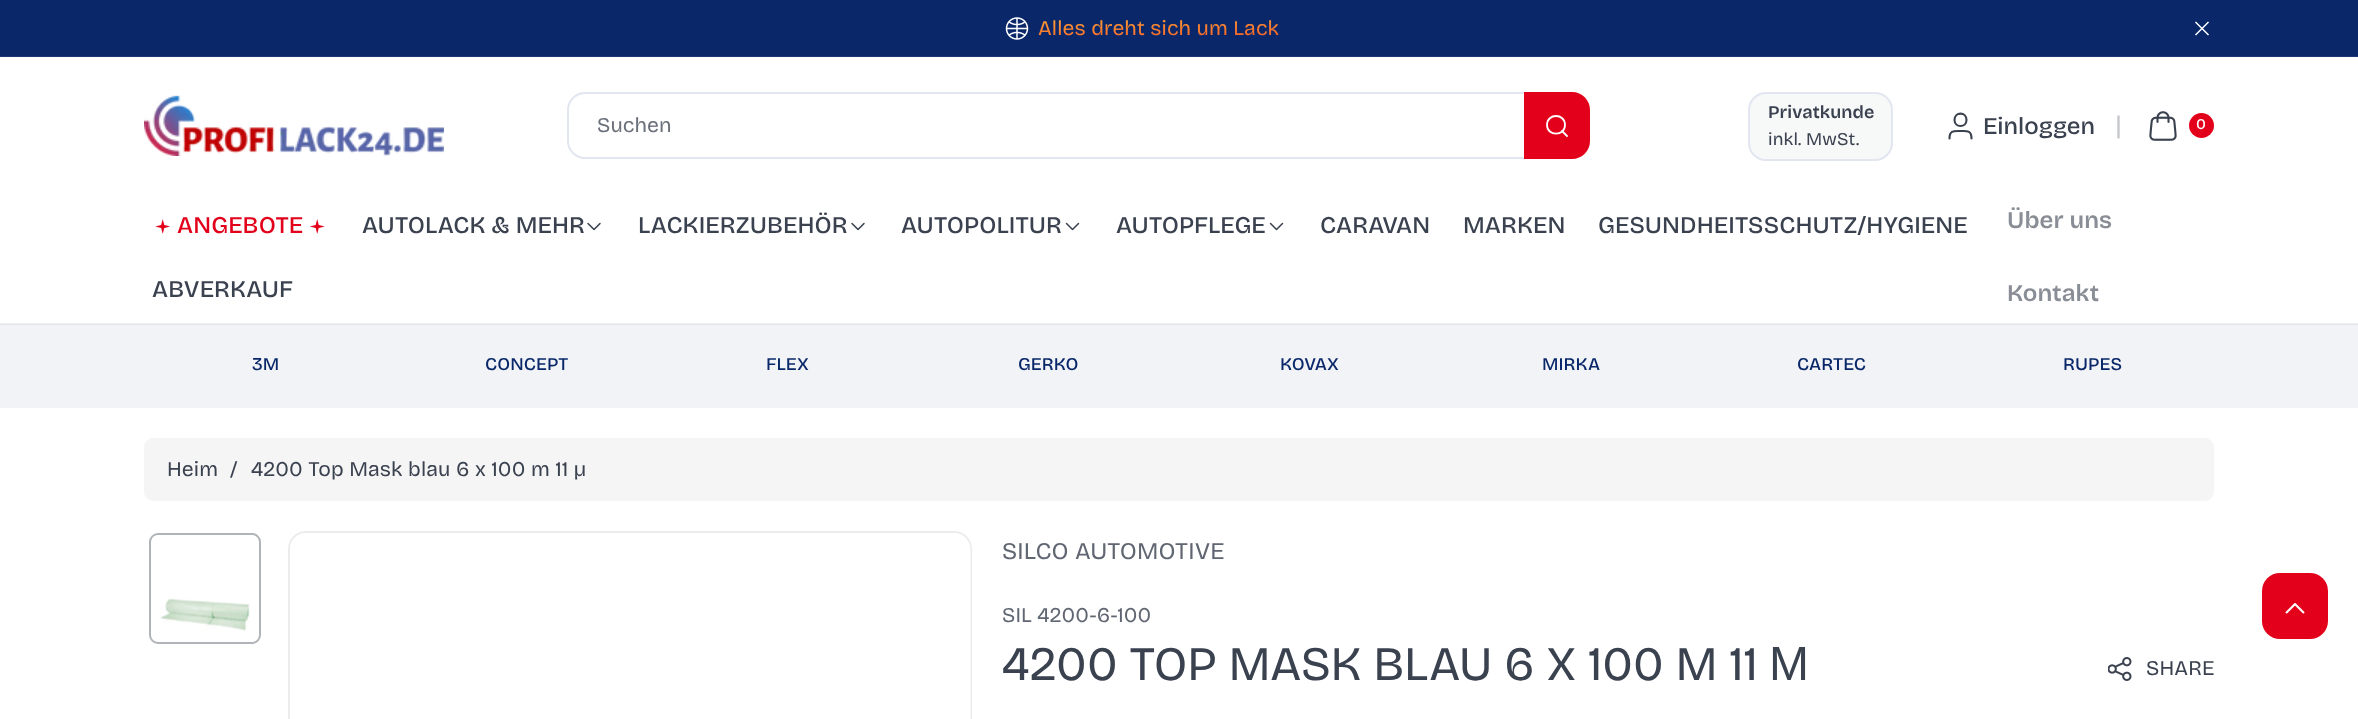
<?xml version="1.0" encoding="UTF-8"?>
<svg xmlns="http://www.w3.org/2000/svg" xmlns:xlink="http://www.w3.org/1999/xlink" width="2358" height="719">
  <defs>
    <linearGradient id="g1" gradientUnits="userSpaceOnUse" x1="1159" y1="45" x2="1158" y2="11"><stop offset="0" stop-color="#f35626" /><stop offset="1" stop-color="#feab3a" /></linearGradient>
  </defs>
  <rect width="100%" height="100%" fill="#ffffff" />
  <rect y="323" width="2358" height="1" fill="#eff0f1" />
  <rect width="2358" height="56" fill="#092769" />
  <rect y="56" width="2358" height="1" fill="#1d3875" />
  <image x="1005" y="17" width="24" height="23" xlink:href="image1.png" />
  <path d="M 2208 22.5 l -12 12 m 0 -12 l 12 12" fill="none" stroke="#ffffff" stroke-width="1.5" stroke-linecap="square" stroke-linejoin="round" />
  <image x="144" y="95" width="300" height="61" xlink:href="image2.png" />
  <rect x="568" y="93" width="1018" height="65" rx="17" fill="none" stroke="#e2e6f0" stroke-width="2" />
  <path d="M 1524 92 h 48 c 10 0 18 8 18 18 v 31 c 0 10 -8 18 -18 18 h -48 z" fill="#e2001a" />
  <path d="M 1567 136 l -5 -5 m 3 -6 c 0 11.5 -18 11.5 -18 0 c 0 -12 18 -12 18 0 z" fill="none" stroke="#ffffff" stroke-width="1.8" stroke-linecap="round" stroke-linejoin="round" />
  <rect x="1749" y="93" width="143" height="67" rx="17" fill="#f7f8f8" stroke="#e2e6f0" stroke-width="2" />
  <path d="M 1971.5 138.5 c 0 -8.5 -4.5 -7.5 -11 -7.5 c -6.5 0 -11 -1 -11 7.5 m 17 -18.5 c 0 8 -12 8 -12 0 c 0 -8.5 12 -8.5 12 0 z" fill="none" stroke="#3a414f" stroke-width="2.1" stroke-linecap="round" stroke-linejoin="round" />
  <image x="2149" y="111" width="28" height="30" xlink:href="image3.png" />
  <circle cx="2201.5" cy="125.5" r="12.5" fill="#e2001a" />
  <image x="155" y="219" width="15" height="15" xlink:href="image4.png" />
  <image x="310" y="219" width="15" height="15" xlink:href="image5.png" />
  <image x="587" y="222" width="14" height="9" xlink:href="image6.png" />
  <image x="851" y="222" width="14" height="9" xlink:href="image6.png" />
  <image x="1065" y="222" width="15" height="9" xlink:href="image7.png" />
  <image x="1269" y="222" width="15" height="9" xlink:href="image7.png" />
  <rect y="325" width="2358" height="83" fill="#f2f3f6" />
  <rect y="324" width="2358" height="1" fill="#e3e5e9" />
  <rect x="144" y="438" width="2070" height="63" rx="9" fill="#f5f5f5" />
  <rect x="150" y="534" width="110" height="109" rx="8" fill="none" stroke="#b0b3b9" stroke-width="2" />
  <image x="160" y="598" width="90" height="33" xlink:href="image8.png" />
  <rect x="289" y="532" width="682" height="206" rx="17" fill="none" stroke="#ebeced" stroke-width="2" />
  <image x="290" y="533" width="681" height="186" xlink:href="image9.png" />
  <image x="2108" y="657" width="24" height="24" xlink:href="image10.png" />
  <rect x="2262" y="573" width="66" height="66" rx="18" fill="#e2001a" />
  <image x="2285" y="603" width="20" height="11" xlink:href="image11.png" />
  <text x="1038" y="35" style="font-family: Bricolage Grotesque; font-size: 21px; letter-spacing: 0.1px; fill: url(#g1)">Alles dreht sich um Lack</text>
  <text x="597" y="132" style="font-family: Bricolage Grotesque; font-size: 21px; letter-spacing: 0.1px; fill: #6b717b">Suchen</text>
  <text x="1768" y="118" style="font-family: 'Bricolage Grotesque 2'; font-size: 18px; font-weight: 600; letter-spacing: 0.1px; fill: #3a414f">Privatkunde</text>
  <text x="1768" y="145" style="font-family: 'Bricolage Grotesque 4'; font-size: 18px; letter-spacing: 0.1px; fill: #3a414f">inkl. MwSt.</text>
  <text x="1983" y="134" style="font-family: 'Bricolage Grotesque 2'; font-size: 24px; font-weight: 500; fill: #3a414f">Einloggen</text>
  <text x="2115" y="134" style="font-family: 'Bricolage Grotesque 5'; font-size: 28px; letter-spacing: 0.1px; fill: #c4c6ca">|</text>
  <text x="2196" y="129" style="font-family: Bricolage Grotesque; font-size: 15px; font-weight: 500; letter-spacing: 0.1px; fill: #ffffff">0</text>
  <text x="177" y="233" style="font-family: 'Bricolage Grotesque 2'; font-size: 24px; font-weight: 500; letter-spacing: 0.1px; fill: #e2001a">ANGEBOTE</text>
  <text x="362" y="233" style="font-family: 'Bricolage Grotesque 2'; font-size: 24px; font-weight: 500; letter-spacing: 0.1px; fill: #3a414f">AUTOLACK &amp; MEHR</text>
  <text x="638" y="233" style="font-family: 'Bricolage Grotesque 2'; font-size: 24px; font-weight: 500; letter-spacing: 0.1px; fill: #3a414f">LACKIERZUBEHÖR</text>
  <text x="901" y="233" style="font-family: 'Bricolage Grotesque 2'; font-size: 24px; font-weight: 500; letter-spacing: 0.1px; fill: #3a414f">AUTOPOLITUR</text>
  <text x="1116" y="233" style="font-family: 'Bricolage Grotesque 2'; font-size: 24px; font-weight: 500; letter-spacing: 0.1px; fill: #3a414f">AUTOPFLEGE</text>
  <text x="1320" y="233" style="font-family: 'Bricolage Grotesque 2'; font-size: 24px; font-weight: 500; letter-spacing: 0.1px; fill: #3a414f">CARAVAN</text>
  <text x="1463" y="233" style="font-family: 'Bricolage Grotesque 2'; font-size: 24px; font-weight: 500; letter-spacing: 0.1px; fill: #3a414f">MARKEN</text>
  <text x="1598" y="233" style="font-family: 'Bricolage Grotesque 2'; font-size: 24px; font-weight: 500; letter-spacing: 0.1px; fill: #3a414f">GESUNDHEITSSCHUTZ/HYGIENE</text>
  <text x="152" y="297" style="font-family: 'Bricolage Grotesque 2'; font-size: 24px; font-weight: 500; letter-spacing: 0.1px; fill: #3a414f">ABVERKAUF</text>
  <text x="2007" y="228" style="font-family: Bricolage Grotesque; font-size: 24px; font-weight: 600; letter-spacing: 0.1px; fill: #898d95">Über uns</text>
  <text x="2007" y="301" style="font-family: Bricolage Grotesque; font-size: 24px; font-weight: 600; letter-spacing: 0.1px; fill: #898d95">Kontakt</text>
  <text x="252" y="370" style="font-family: Bricolage Grotesque; font-size: 18px; font-weight: 500; letter-spacing: 0.1px; fill: #092769">3M</text>
  <text x="485" y="370" style="font-family: Bricolage Grotesque; font-size: 18px; font-weight: 500; letter-spacing: 0.1px; fill: #092769">CONCEPT</text>
  <text x="766" y="370" style="font-family: Bricolage Grotesque; font-size: 18px; font-weight: 500; letter-spacing: 0.1px; fill: #092769">FLEX</text>
  <text x="1018" y="370" style="font-family: Bricolage Grotesque; font-size: 18px; font-weight: 500; letter-spacing: 0.1px; fill: #092769">GERKO</text>
  <text x="1280" y="370" style="font-family: Bricolage Grotesque; font-size: 18px; font-weight: 500; letter-spacing: 0.1px; fill: #092769">KOVAX</text>
  <text x="1542" y="370" style="font-family: Bricolage Grotesque; font-size: 18px; font-weight: 500; letter-spacing: 0.1px; fill: #092769">MIRKA</text>
  <text x="1797" y="370" style="font-family: Bricolage Grotesque; font-size: 18px; font-weight: 500; letter-spacing: 0.1px; fill: #092769">CARTEC</text>
  <text x="2063" y="370" style="font-family: Bricolage Grotesque; font-size: 18px; font-weight: 500; letter-spacing: 0.1px; fill: #092769">RUPES</text>
  <text x="167" y="476" style="font-family: Bricolage Grotesque; font-size: 21px; letter-spacing: 0.1px; fill: #3a414f">Heim</text>
  <text x="230" y="476" style="font-family: Bricolage Grotesque; font-size: 21px; letter-spacing: 0.1px; fill: #3a414f">/</text>
  <text x="251" y="476" style="font-family: Bricolage Grotesque; font-size: 21px; letter-spacing: 0.1px; fill: #3a414f">4200 Top Mask blau 6 x 100 m 11 µ</text>
  <text x="1002" y="559" style="font-family: 'Bricolage Grotesque 2'; font-size: 24px; letter-spacing: 0.1px; fill: #616772">SILCO AUTOMOTIVE</text>
  <text x="1002" y="622" style="font-family: Bricolage Grotesque; font-size: 21px; letter-spacing: 0.1px; fill: #616772">SIL 4200-6-100</text>
  <text x="1002" y="680" style="font-family: 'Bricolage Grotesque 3'; font-size: 48px; letter-spacing: 0.1px; fill: #3a414f">4200 TOP MASK BLAU 6 X 100 M 11</text>
  <text x="1769" y="680" style="font-family: Liberation Sans; font-size: 48px; letter-spacing: 0.1px; fill: #3a414f">Μ</text>
  <text x="2146" y="675" style="font-family: Bricolage Grotesque; font-size: 21px; letter-spacing: 0.1px; fill: #3a414f">SHARE</text>
</svg>
